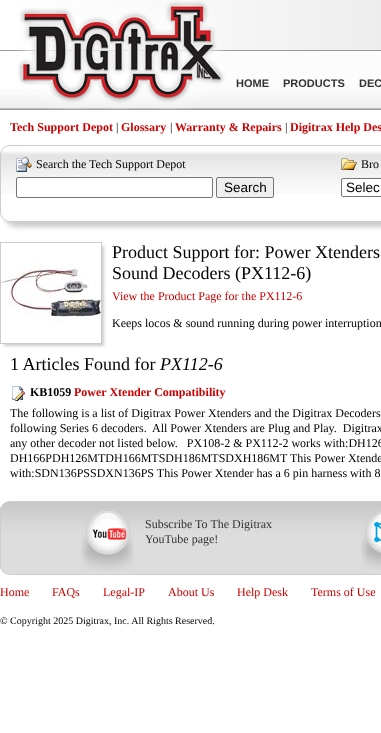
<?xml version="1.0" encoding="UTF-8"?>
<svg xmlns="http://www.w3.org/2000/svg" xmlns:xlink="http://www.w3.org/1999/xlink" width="381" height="733">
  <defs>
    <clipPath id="clip1"><path d="M 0 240 h 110 v 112 h -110 z m 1 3 h 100 v 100 h -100 z" clip-rule="evenodd" /></clipPath>
  </defs>
  <rect width="100%" height="100%" fill="#ffffff" />
  <image x="191" y="51" width="190" height="38" xlink:href="image1.png" />
  <image x="0" y="0" width="381" height="50" xlink:href="image2.png" />
  <rect y="50" width="381" height="1" fill="#999999" />
  <image x="0" y="89" width="381" height="20" xlink:href="image4.png" />
  <rect y="109" width="381" height="1" fill="#999999" />
  <image x="13" y="1" width="216" height="109" xlink:href="image3.png" />
  <rect x="5" y="150" width="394" height="77" rx="10" fill="#cccccc" filter="blur(2.5px)" />
  <rect y="145" width="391" height="77" rx="10" fill="#ffffff" />
  <image x="0" y="151" width="381" height="43" xlink:href="image5.png" />
  <rect x="0.5" y="145.5" width="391" height="76" rx="9.5" fill="none" stroke="#cccccc" />
  <image x="16" y="157" width="16" height="15" xlink:href="image6.png" />
  <rect x="16.5" y="177.5" width="196" height="20" rx="1.5" fill="#ffffff" stroke="#767676" />
  <rect x="216.5" y="177.5" width="57" height="20" rx="1.5" fill="#efefef" stroke="#767676" />
  <image x="341" y="158" width="16" height="12" xlink:href="image7.png" />
  <rect x="341.5" y="178.5" width="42" height="18" rx="1.5" fill="#ffffff" stroke="#767676" />
  <rect x="0.5" y="242.5" width="101" height="101" fill="none" stroke="#cccccc" />
  <g clip-path="url(#clip1)">
    <rect x="4" y="246" width="100" height="100" fill="#cccccc" filter="blur(1.5px)" />
  </g>
  <image x="1" y="263" width="100" height="60" xlink:href="image8.png" />
  <image x="12" y="386" width="13" height="15" xlink:href="image9.png" />
  <image x="0" y="502" width="381" height="72" xlink:href="image10.png" />
  <rect x="0.5" y="501.5" width="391" height="73" rx="9.5" fill="none" stroke="#cccccc" />
  <image x="81" y="511" width="53" height="60" xlink:href="image11.png" />
  <image x="361" y="511" width="20" height="59" xlink:href="image12.png" />
  <text x="236" y="87" style="font-family: Liberation Sans; font-size: 11px; font-weight: bold; fill: #333333">HOME</text>
  <text x="283" y="87" style="font-family: Liberation Sans; font-size: 11px; font-weight: bold; fill: #333333">PRODUCTS</text>
  <text x="359" y="87" style="font-family: Liberation Sans; font-size: 11px; font-weight: bold; fill: #333333">DEC</text>
  <text x="10" y="131" style="font-family: Liberation Serif; font-size: 12px; font-weight: bold; fill: #cc0000">Tech Support Depot</text>
  <text x="116" y="131" style="font-family: Liberation Serif; font-size: 12px; fill: #000000">|</text>
  <text x="121" y="131" style="font-family: Liberation Serif; font-size: 12px; font-weight: bold; fill: #cc0000">Glossary</text>
  <text x="170" y="131" style="font-family: Liberation Serif; font-size: 12px; fill: #000000">|</text>
  <text x="175" y="131" style="font-family: Liberation Serif; font-size: 12px; font-weight: bold; fill: #cc0000">Warranty &amp; Repairs</text>
  <text x="285" y="131" style="font-family: Liberation Serif; font-size: 12px; fill: #000000">|</text>
  <text x="290" y="131" style="font-family: Liberation Serif; font-size: 12px; font-weight: bold; fill: #cc0000">Digitrax Help Des</text>
  <text x="36" y="168" style="font-family: Liberation Serif; font-size: 12px; fill: #000000">Search the Tech Support Depot</text>
  <text x="224" y="192" style="font-family: Liberation Sans; font-size: 13.5px; fill: #000000">Search</text>
  <text x="361" y="168" style="font-family: Liberation Serif; font-size: 12px; fill: #000000">Bro</text>
  <text x="346" y="192" style="font-family: Liberation Sans; font-size: 13.5px; fill: #000000">Selec</text>
  <text x="112" y="258" style="font-family: Liberation Serif; font-size: 18px; fill: #000000">Product Support for: Power Xtenders</text>
  <text x="112" y="279" style="font-family: Liberation Serif; font-size: 18px; fill: #000000">Sound Decoders (PX112-6)</text>
  <text x="112" y="300" style="font-family: Liberation Serif; font-size: 12px; fill: #cc0000">View the Product Page for the PX112-6</text>
  <text x="112" y="327" style="font-family: Liberation Serif; font-size: 12px; fill: #000000">Keeps locos &amp; sound running during power interruption</text>
  <text x="10" y="370" style="font-family: Liberation Serif; font-size: 18px; fill: #000000">1 Articles Found for</text>
  <text x="160" y="370" style="font-family: Liberation Serif; font-size: 18px; font-style: italic; fill: #000000">PX112-6</text>
  <text x="30" y="396" style="font-family: Liberation Serif; font-size: 12px; font-weight: bold; fill: #000000">KB1059</text>
  <text x="74" y="396" style="font-family: Liberation Serif; font-size: 12px; font-weight: bold; fill: #cc0000">Power Xtender Compatibility</text>
  <text x="10" y="417" style="font-family: Liberation Serif; font-size: 12px; fill: #000000">The following is a list of Digitrax Power Xtenders and the Digitrax Decoders</text>
  <text x="10" y="432" style="font-family: Liberation Serif; font-size: 12px; fill: #000000" xml:space="preserve">following Series 6 decoders.  All Power Xtenders are Plug and Play.  Digitrax</text>
  <text x="10" y="447" style="font-family: Liberation Serif; font-size: 12px; fill: #000000" xml:space="preserve">any other decoder not listed below.   PX108-2 &amp; PX112-2 works with:DH126</text>
  <text x="10" y="462" style="font-family: Liberation Serif; font-size: 12px; fill: #000000">DH166PDH126MTDH166MTSDH186MTSDXH186MT This Power Xtende</text>
  <text x="10" y="477" style="font-family: Liberation Serif; font-size: 12px; fill: #000000">with:SDN136PSSDXN136PS This Power Xtender has a 6 pin harness with 8</text>
  <text x="145" y="528" style="font-family: Liberation Serif; font-size: 12px; fill: #333333">Subscribe To The Digitrax</text>
  <text x="145" y="543" style="font-family: Liberation Serif; font-size: 12px; fill: #333333">YouTube page!</text>
  <text x="0" y="596" style="font-family: Liberation Serif; font-size: 12px; fill: #cc0000">Home</text>
  <text x="52" y="596" style="font-family: Liberation Serif; font-size: 12px; fill: #cc0000">FAQs</text>
  <text x="103" y="596" style="font-family: Liberation Serif; font-size: 12px; fill: #cc0000">Legal-IP</text>
  <text x="168" y="596" style="font-family: Liberation Serif; font-size: 12px; fill: #cc0000">About Us</text>
  <text x="237" y="596" style="font-family: Liberation Serif; font-size: 12px; fill: #cc0000">Help Desk</text>
  <text x="311" y="596" style="font-family: Liberation Serif; font-size: 12px; fill: #cc0000">Terms of Use</text>
  <text x="0" y="624" style="font-family: Liberation Serif; font-size: 10px; fill: #000000">© Copyright 2025 Digitrax, Inc. All Rights Reserved.</text>
</svg>
